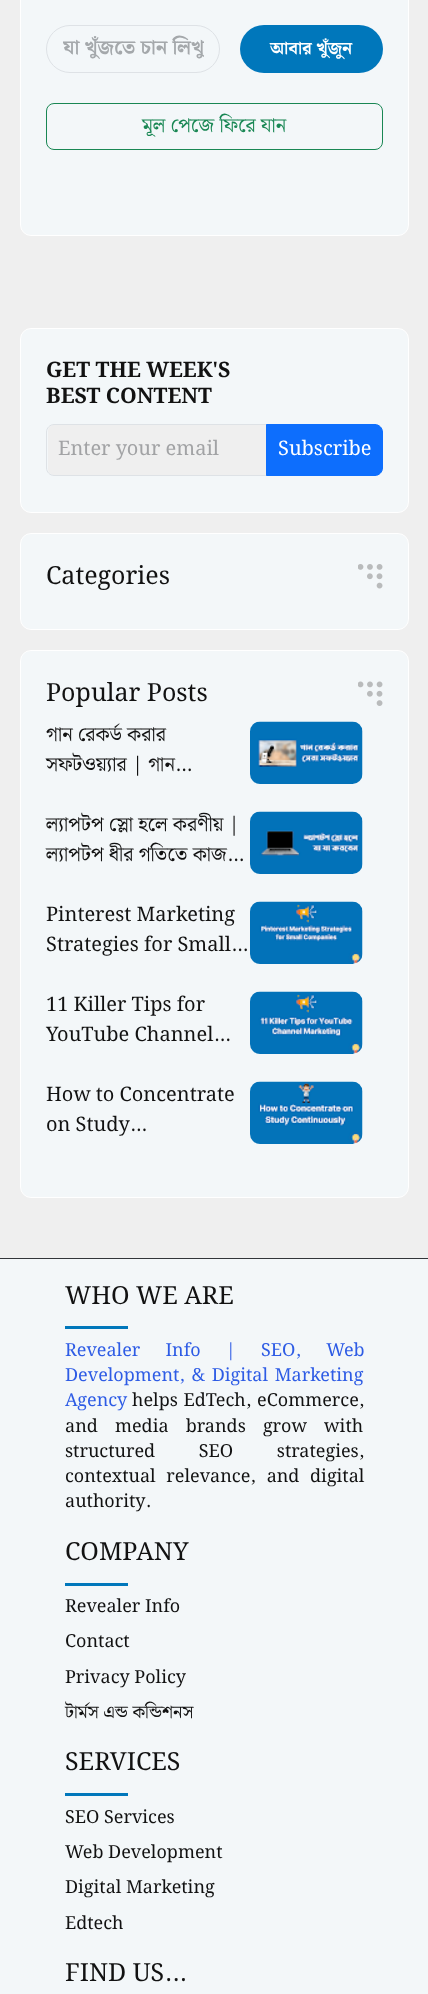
<?xml version="1.0" encoding="UTF-8"?>
<svg xmlns="http://www.w3.org/2000/svg" xmlns:xlink="http://www.w3.org/1999/xlink" width="428" height="1994">
  <defs>
    <clipPath id="clip1"><rect x="63" y="33" width="141" height="31" /></clipPath>
  </defs>
  <rect width="100%" height="100%" fill="#efefef" />
  <rect x="20.5" y="-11.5" width="388" height="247" rx="10.5" fill="#f3f7f9" stroke="#ffffff" />
  <rect x="46.5" y="25.5" width="173" height="47" rx="23.5" fill="none" stroke="#dee2e6" />
  <rect x="240" y="25" width="143" height="48" rx="24" fill="#0077bb" />
  <rect x="46.5" y="103.5" width="336" height="46" rx="7.5" fill="none" stroke="#198754" />
  <rect x="20.5" y="328.5" width="388" height="184" rx="10.5" fill="#f3f7f9" stroke="#ffffff" />
  <path d="M 54 425 h 212 v 50 h -212 c -3.5 0 -6 -2.5 -6 -6 v -38 c 0 -3.5 2.5 -6 6 -6 z" fill="#efefef" />
  <path d="M 54 424.5 h 213.5 v 51 h -213.5 c -4 0 -7.5 -3.5 -7.5 -7.5 v -36 c 0 -4 3.5 -7.5 7.5 -7.5 z" fill="none" stroke="#dee2e6" />
  <path d="M 266.5 424.5 h 108.5 c 4 0 7.5 3.5 7.5 7.5 v 36 c 0 4 -3.5 7.5 -7.5 7.5 h -108.5 z" fill="#0d6efd" stroke="#0d6efd" />
  <rect x="20.5" y="533.5" width="388" height="96" rx="10.5" fill="#f3f7f9" stroke="#ffffff" />
  <image x="358" y="564" width="25" height="25" xlink:href="image1.png" />
  <rect x="20.5" y="650.5" width="388" height="547" rx="10.5" fill="#f3f7f9" stroke="#ffffff" />
  <image x="358" y="681" width="25" height="25" xlink:href="image2.png" />
  <image x="250" y="721" width="113" height="63" xlink:href="image3.png" />
  <image x="250" y="811" width="113" height="63" xlink:href="image4.png" />
  <image x="250" y="901" width="113" height="63" xlink:href="image5.png" />
  <image x="250" y="991" width="113" height="63" xlink:href="image6.png" />
  <image x="250" y="1081" width="113" height="63" xlink:href="image7.png" />
  <rect y="1259" width="428" height="735" fill="#f3f7f9" />
  <rect y="1258" width="428" height="1" fill="#323539" />
  <rect x="65" y="1326" width="63" height="3" fill="#0077bb" />
  <rect x="65" y="1583" width="63" height="3" fill="#0077bb" />
  <rect x="65" y="1793" width="63" height="3" fill="#0077bb" />
  <g clip-path="url(#clip1)">
    <text x="63" y="54" style="font-family: Noto Serif Bengali; font-size: 20px; font-weight: bold; fill: #a4a8ab">যা খুঁজতে চান লিখু</text>
  </g>
  <text x="270" y="54" style="font-family: Noto Serif Bengali; font-size: 17.5px; font-weight: bold; fill: #ffffff">আবার খুঁজুন</text>
  <text x="142" y="132" style="font-family: Noto Serif Bengali; font-size: 20px; fill: #198754">মূল পেজে ফিরে যান</text>
  <text x="46" y="377" style="font-family: Noto Serif Bengali; font-size: 21.25px; font-weight: bold; fill: #121212">GET THE WEEK'S</text>
  <text x="46" y="403" style="font-family: Noto Serif Bengali; font-size: 21.25px; font-weight: bold; fill: #121212">BEST CONTENT</text>
  <text x="58" y="455" style="font-family: Noto Serif Bengali; font-size: 20px; fill: #a2a3a5">Enter your email</text>
  <text x="278" y="455" style="font-family: Noto Serif Bengali; font-size: 20px; fill: #ffffff">Subscribe</text>
  <text x="46" y="584" style="font-family: Noto Serif Bengali; font-size: 25px; fill: #121212">Categories</text>
  <text x="46" y="701" style="font-family: Noto Serif Bengali; font-size: 25px; fill: #121212">Popular Posts</text>
  <text x="46" y="741" style="font-family: Noto Serif Bengali; font-size: 20px; fill: #121212">গান রেকর্ড করার</text>
  <text x="46" y="771" style="font-family: Noto Serif Bengali; font-size: 20px; fill: #121212">সফটওয়্যার | গান…</text>
  <text x="46" y="831" style="font-family: Noto Serif Bengali; font-size: 20px; fill: #121212">ল্যাপটপ স্লো হলে করণীয় |</text>
  <text x="46" y="861" style="font-family: Noto Serif Bengali; font-size: 20px; fill: #121212">ল্যাপটপ ধীর গতিতে কাজ…</text>
  <text x="46" y="921" style="font-family: Noto Serif Bengali; font-size: 20px; fill: #121212">Pinterest Marketing</text>
  <text x="46" y="951" style="font-family: Noto Serif Bengali; font-size: 20px; fill: #121212">Strategies for Small…</text>
  <text x="46" y="1011" style="font-family: Noto Serif Bengali; font-size: 20px; fill: #121212">11 Killer Tips for</text>
  <text x="46" y="1041" style="font-family: Noto Serif Bengali; font-size: 20px; fill: #121212">YouTube Channel…</text>
  <text x="46" y="1101" style="font-family: Noto Serif Bengali; font-size: 20px; fill: #121212">How to Concentrate</text>
  <text x="46" y="1131" style="font-family: Noto Serif Bengali; font-size: 20px; fill: #121212">on Study…</text>
  <text x="65" y="1304" style="font-family: Noto Serif Bengali; font-size: 25px; fill: #121212">WHO WE ARE</text>
  <text x="65" y="1356" word-spacing="20.5" style="font-family: Noto Serif Bengali; font-size: 18px; fill: #2e5ce5">Revealer Info | SEO, Web</text>
  <text x="65" y="1381" word-spacing="2" style="font-family: Noto Serif Bengali; font-size: 18px; fill: #2e5ce5">Development, &amp; Digital Marketing</text>
  <text x="65" y="1406" style="font-family: Noto Serif Bengali; font-size: 18px; fill: #2e5ce5">Agency</text>
  <text x="132" y="1406" word-spacing="1" style="font-family: Noto Serif Bengali; font-size: 18px; fill: #121212">helps EdTech, eCommerce,</text>
  <text x="65" y="1432" word-spacing="12.5" style="font-family: Noto Serif Bengali; font-size: 18px; fill: #121212">and media brands grow with</text>
  <text x="65" y="1457" word-spacing="39" style="font-family: Noto Serif Bengali; font-size: 18px; fill: #121212">structured SEO strategies,</text>
  <text x="65" y="1482" word-spacing="6" style="font-family: Noto Serif Bengali; font-size: 18px; fill: #121212">contextual relevance, and digital</text>
  <text x="65" y="1507" style="font-family: Noto Serif Bengali; font-size: 18px; fill: #121212">authority.</text>
  <text x="65" y="1560" style="font-family: Noto Serif Bengali; font-size: 25px; fill: #121212">COMPANY</text>
  <text x="65" y="1612" style="font-family: Noto Serif Bengali; font-size: 18px; fill: #121212">Revealer Info</text>
  <text x="65" y="1647" style="font-family: Noto Serif Bengali; font-size: 18px; fill: #121212">Contact</text>
  <text x="65" y="1683" style="font-family: Noto Serif Bengali; font-size: 18px; fill: #121212">Privacy Policy</text>
  <text x="65" y="1718" style="font-family: Noto Serif Bengali; font-size: 18px; fill: #121212">টার্মস এন্ড কন্ডিশনস</text>
  <text x="65" y="1770" style="font-family: Noto Serif Bengali; font-size: 25px; fill: #121212">SERVICES</text>
  <text x="65" y="1823" style="font-family: Noto Serif Bengali; font-size: 18px; fill: #121212">SEO Services</text>
  <text x="65" y="1858" style="font-family: Noto Serif Bengali; font-size: 18px; fill: #121212">Web Development</text>
  <text x="65" y="1893" style="font-family: Noto Serif Bengali; font-size: 18px; fill: #121212">Digital Marketing</text>
  <text x="65" y="1929" style="font-family: Noto Serif Bengali; font-size: 18px; fill: #121212">Edtech</text>
  <text x="65" y="1981" style="font-family: Noto Serif Bengali; font-size: 25px; fill: #121212">FIND US...</text>
</svg>
